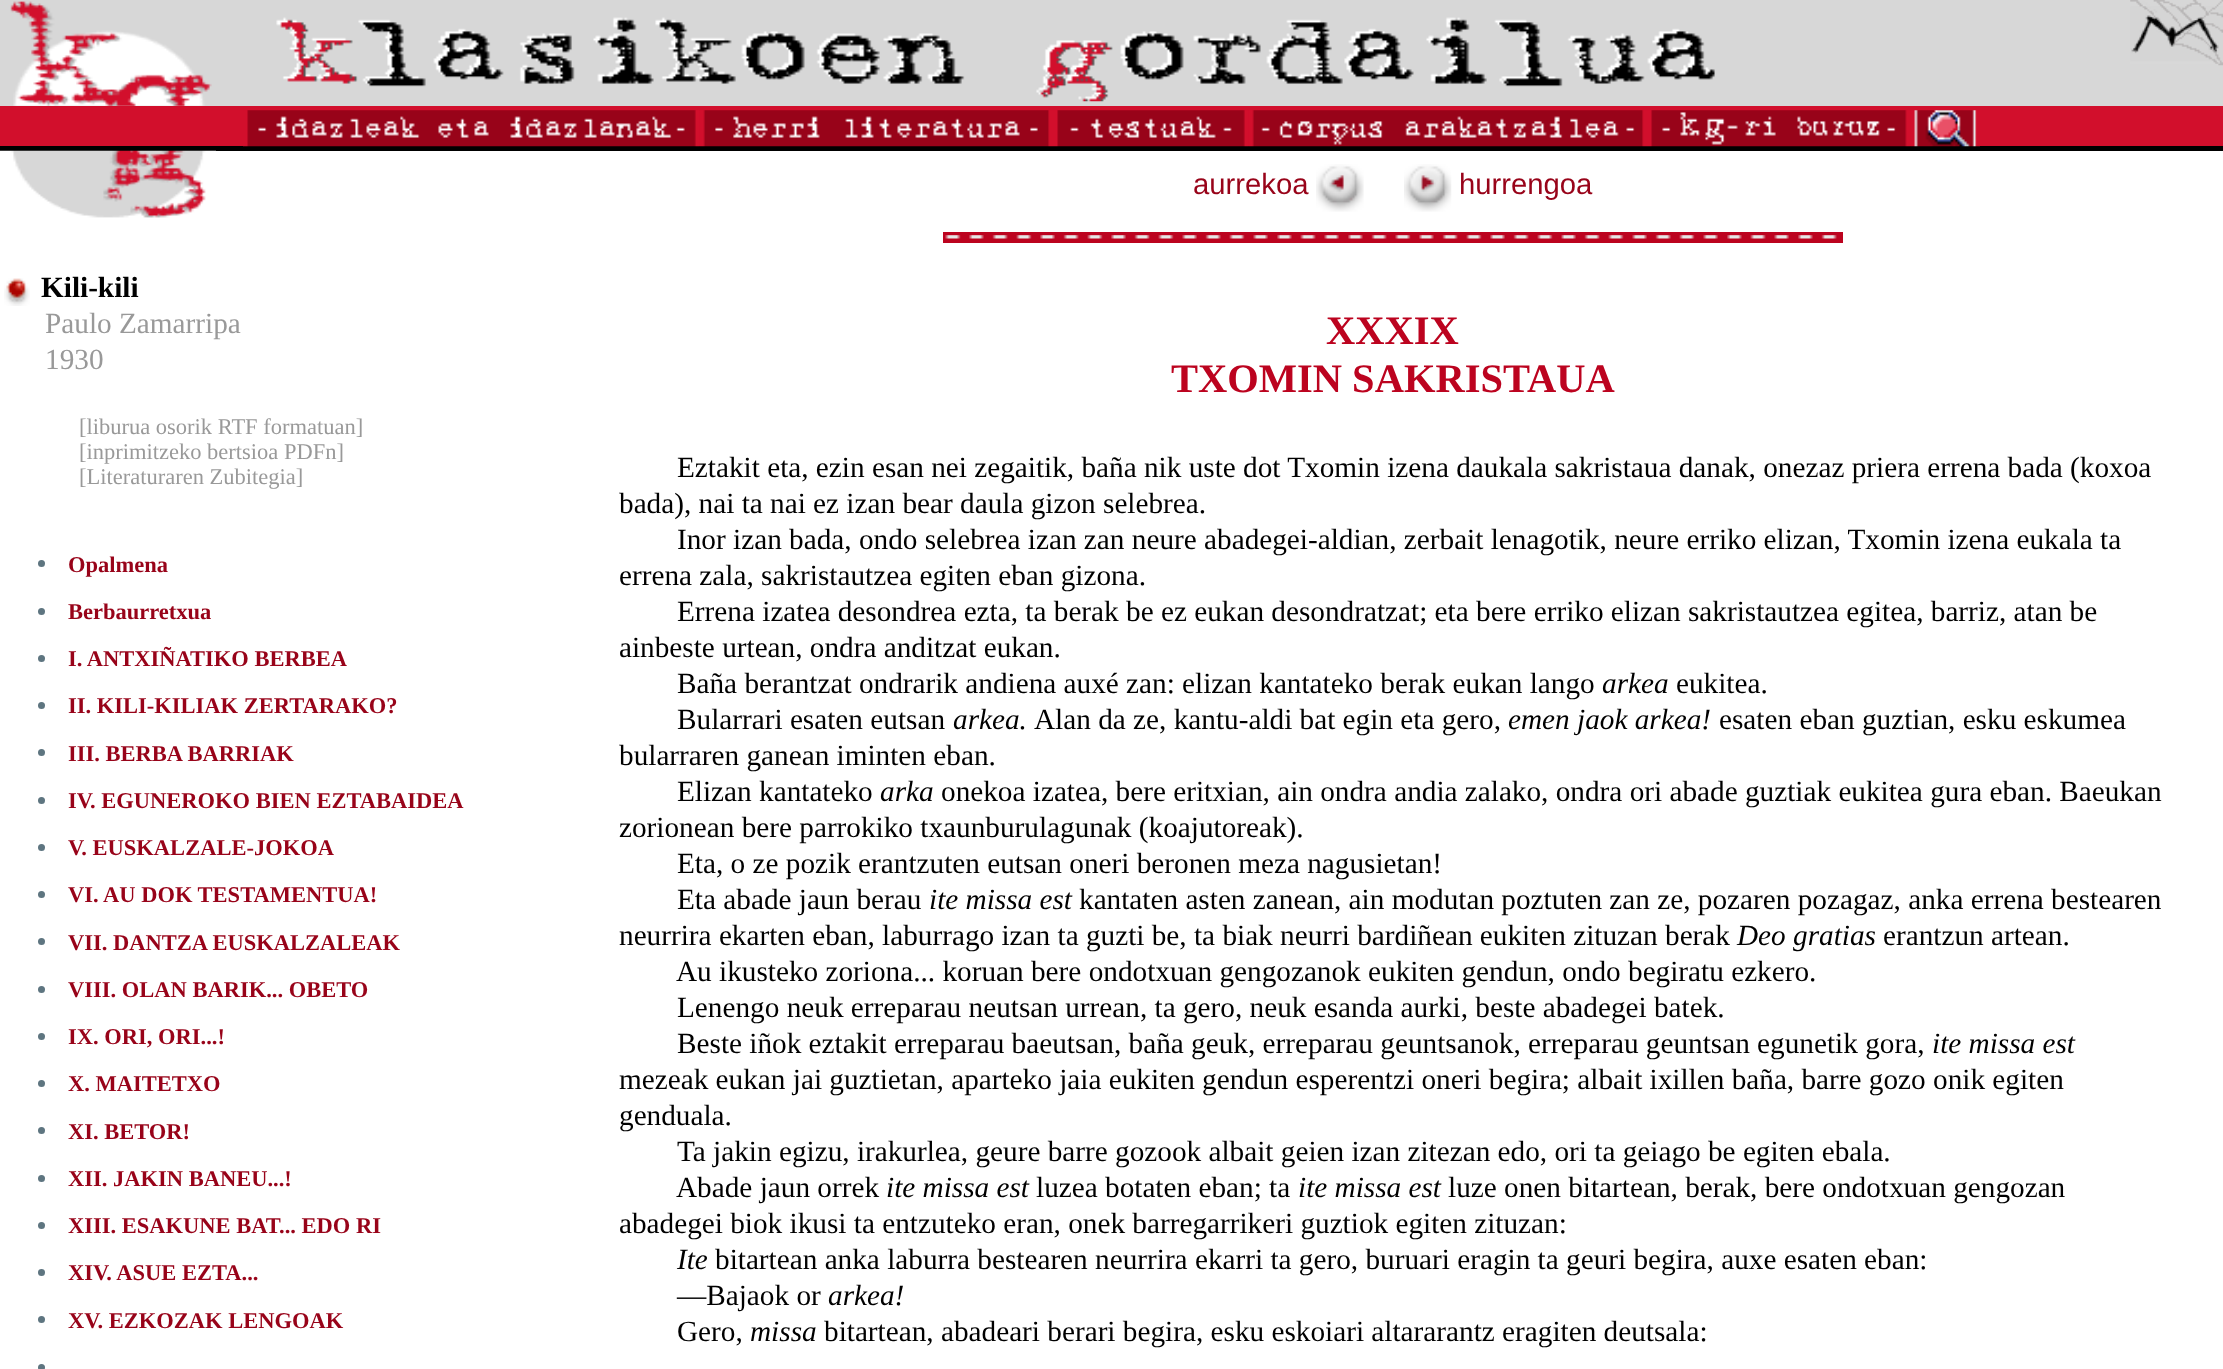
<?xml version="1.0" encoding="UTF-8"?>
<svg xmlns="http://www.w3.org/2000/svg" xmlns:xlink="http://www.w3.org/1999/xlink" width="2223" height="1369">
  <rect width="100%" height="100%" fill="#ffffff" />
  <rect width="2223" height="106" fill="#d7d7d7" />
  <image x="10" y="1" width="202" height="105" xlink:href="image1.png" />
  <image x="276" y="17" width="1439" height="85" xlink:href="image2.png" />
  <image x="2130" y="0" width="93" height="66" xlink:href="image3.png" />
  <rect y="106" width="2223" height="40" fill="#d20f2c" />
  <rect y="146" width="2223" height="5" fill="#000000" />
  <image x="243" y="110" width="457" height="37" xlink:href="image4.png" />
  <image x="699" y="110" width="354" height="37" xlink:href="image5.png" />
  <image x="1053" y="110" width="196" height="37" xlink:href="image6.png" />
  <image x="1248" y="110" width="399" height="37" xlink:href="image7.png" />
  <image x="1647" y="110" width="264" height="37" xlink:href="image8.png" />
  <image x="1910" y="110" width="70" height="37" xlink:href="image9.png" />
  <image x="0" y="150" width="216" height="68" xlink:href="image10.png" />
  <image x="4" y="278" width="26" height="28" xlink:href="image11.png" />
  <circle cx="41.5" cy="563.5" r="3.5" fill="#5e7580" />
  <circle cx="41.5" cy="611.5" r="3.5" fill="#5e7580" />
  <circle cx="41.5" cy="658.5" r="3.5" fill="#5e7580" />
  <circle cx="41.5" cy="705.5" r="3.5" fill="#5e7580" />
  <circle cx="41.5" cy="752.5" r="3.5" fill="#5e7580" />
  <circle cx="41.5" cy="800.5" r="3.5" fill="#5e7580" />
  <circle cx="41.5" cy="847.5" r="3.5" fill="#5e7580" />
  <circle cx="41.5" cy="894.5" r="3.5" fill="#5e7580" />
  <circle cx="41.5" cy="941.5" r="3.5" fill="#5e7580" />
  <circle cx="41.5" cy="989.5" r="3.5" fill="#5e7580" />
  <circle cx="41.5" cy="1036.5" r="3.5" fill="#5e7580" />
  <circle cx="41.5" cy="1083.5" r="3.5" fill="#5e7580" />
  <circle cx="41.5" cy="1130.5" r="3.5" fill="#5e7580" />
  <circle cx="41.5" cy="1178.5" r="3.5" fill="#5e7580" />
  <circle cx="41.5" cy="1225.5" r="3.5" fill="#5e7580" />
  <circle cx="41.5" cy="1272.5" r="3.5" fill="#5e7580" />
  <circle cx="41.5" cy="1319.5" r="3.5" fill="#5e7580" />
  <circle cx="41.5" cy="1367.5" r="3.5" fill="#5e7580" />
  <image x="1316" y="164" width="48" height="48" xlink:href="image12.png" />
  <image x="1404" y="164" width="48" height="48" xlink:href="image13.png" />
  <rect x="943" y="232" width="900" height="11" fill="#bc031f" />
  <image x="945" y="235" width="892" height="4" xlink:href="image14.png" />
  <text x="41" y="297" style="font-family: Liberation Serif; font-size: 29.25px; font-weight: bold; fill: #000000">Kili-kili</text>
  <text x="45" y="333" style="font-family: Liberation Serif; font-size: 29.25px; fill: #999999">Paulo Zamarripa</text>
  <text x="45" y="369" style="font-family: Liberation Serif; font-size: 29.25px; fill: #999999">1930</text>
  <text x="79" y="434" style="font-family: Liberation Serif; font-size: 22.5px; fill: #999999">[liburua osorik RTF formatuan]</text>
  <text x="79" y="459" style="font-family: Liberation Serif; font-size: 22.5px; fill: #999999">[inprimitzeko bertsioa PDFn]</text>
  <text x="79" y="484" style="font-family: Liberation Serif; font-size: 22.5px; fill: #999999">[Literaturaren Zubitegia]</text>
  <text x="68" y="572" style="font-family: Liberation Serif; font-size: 22.5px; font-weight: bold; fill: #980319">Opalmena</text>
  <text x="68" y="619" style="font-family: Liberation Serif; font-size: 22.5px; font-weight: bold; fill: #980319">Berbaurretxua</text>
  <text x="68" y="666" style="font-family: Liberation Serif; font-size: 22.5px; font-weight: bold; fill: #980319">I. ANTXIÑATIKO BERBEA</text>
  <text x="68" y="713" style="font-family: Liberation Serif; font-size: 22.5px; font-weight: bold; fill: #980319">II. KILI-KILIAK ZERTARAKO?</text>
  <text x="68" y="761" style="font-family: Liberation Serif; font-size: 22.5px; font-weight: bold; fill: #980319">III. BERBA BARRIAK</text>
  <text x="68" y="808" style="font-family: Liberation Serif; font-size: 22.5px; font-weight: bold; fill: #980319">IV. EGUNEROKO BIEN EZTABAIDEA</text>
  <text x="68" y="855" style="font-family: Liberation Serif; font-size: 22.5px; font-weight: bold; fill: #980319">V. EUSKALZALE-JOKOA</text>
  <text x="68" y="902" style="font-family: Liberation Serif; font-size: 22.5px; font-weight: bold; fill: #980319">VI. AU DOK TESTAMENTUA!</text>
  <text x="68" y="950" style="font-family: Liberation Serif; font-size: 22.5px; font-weight: bold; fill: #980319">VII. DANTZA EUSKALZALEAK</text>
  <text x="68" y="997" style="font-family: Liberation Serif; font-size: 22.5px; font-weight: bold; fill: #980319">VIII. OLAN BARIK... OBETO</text>
  <text x="68" y="1044" style="font-family: Liberation Serif; font-size: 22.5px; font-weight: bold; fill: #980319">IX. ORI, ORI...!</text>
  <text x="68" y="1091" style="font-family: Liberation Serif; font-size: 22.5px; font-weight: bold; fill: #980319">X. MAITETXO</text>
  <text x="68" y="1139" style="font-family: Liberation Serif; font-size: 22.5px; font-weight: bold; fill: #980319">XI. BETOR!</text>
  <text x="68" y="1186" style="font-family: Liberation Serif; font-size: 22.5px; font-weight: bold; fill: #980319">XII. JAKIN BANEU...!</text>
  <text x="68" y="1233" style="font-family: Liberation Serif; font-size: 22.5px; font-weight: bold; fill: #980319">XIII. ESAKUNE BAT... EDO RI</text>
  <text x="68" y="1280" style="font-family: Liberation Serif; font-size: 22.5px; font-weight: bold; fill: #980319">XIV. ASUE EZTA...</text>
  <text x="68" y="1328" style="font-family: Liberation Serif; font-size: 22.5px; font-weight: bold; fill: #980319">XV. EZKOZAK LENGOAK</text>
  <text x="1193" y="194" style="font-family: Liberation Sans; font-size: 29.25px; fill: #980319">aurrekoa</text>
  <text x="1459" y="194" style="font-family: Liberation Sans; font-size: 29.25px; fill: #980319">hurrengoa</text>
  <text x="1326" y="344" style="font-family: Liberation Serif; font-size: 40.5px; font-weight: bold; fill: #bc031f">XXXIX</text>
  <text x="1171" y="392" style="font-family: Liberation Serif; font-size: 40.5px; font-weight: bold; fill: #bc031f">TXOMIN SAKRISTAUA</text>
  <text x="677" y="477" style="font-family: Liberation Serif; font-size: 29.25px; fill: #000000">Eztakit eta, ezin esan nei zegaitik, baña nik uste dot Txomin izena daukala sakristaua danak, onezaz priera errena bada (koxoa</text>
  <text x="619" y="513" style="font-family: Liberation Serif; font-size: 29.25px; fill: #000000">bada), nai ta nai ez izan bear daula gizon selebrea.</text>
  <text x="677" y="549" style="font-family: Liberation Serif; font-size: 29.25px; fill: #000000">Inor izan bada, ondo selebrea izan zan neure abadegei-aldian, zerbait lenagotik, neure erriko elizan, Txomin izena eukala ta</text>
  <text x="619" y="585" style="font-family: Liberation Serif; font-size: 29.25px; fill: #000000">errena zala, sakristautzea egiten eban gizona.</text>
  <text x="677" y="621" style="font-family: Liberation Serif; font-size: 29.25px; fill: #000000">Errena izatea desondrea ezta, ta berak be ez eukan desondratzat; eta bere erriko elizan sakristautzea egitea, barriz, atan be</text>
  <text x="619" y="657" style="font-family: Liberation Serif; font-size: 29.25px; fill: #000000">ainbeste urtean, ondra anditzat eukan.</text>
  <text x="677" y="693" style="font-family: Liberation Serif; font-size: 29.25px; fill: #000000">Baña berantzat ondrarik andiena auxé zan: elizan kantateko berak eukan lango</text>
  <text x="1602" y="693" style="font-family: Liberation Serif; font-size: 29.25px; font-style: italic; fill: #000000">arkea</text>
  <text x="1676" y="693" style="font-family: Liberation Serif; font-size: 29.25px; fill: #000000">eukitea.</text>
  <text x="677" y="729" style="font-family: Liberation Serif; font-size: 29.25px; fill: #000000">Bularrari esaten eutsan</text>
  <text x="953" y="729" style="font-family: Liberation Serif; font-size: 29.25px; font-style: italic; fill: #000000">arkea.</text>
  <text x="1034" y="729" style="font-family: Liberation Serif; font-size: 29.25px; fill: #000000">Alan da ze, kantu-aldi bat egin eta gero,</text>
  <text x="1508" y="729" style="font-family: Liberation Serif; font-size: 29.25px; font-style: italic; fill: #000000">emen jaok arkea!</text>
  <text x="1719" y="729" style="font-family: Liberation Serif; font-size: 29.25px; fill: #000000">esaten eban guztian, esku eskumea</text>
  <text x="619" y="765" style="font-family: Liberation Serif; font-size: 29.25px; fill: #000000">bularraren ganean iminten eban.</text>
  <text x="677" y="801" style="font-family: Liberation Serif; font-size: 29.25px; fill: #000000">Elizan kantateko</text>
  <text x="880" y="801" style="font-family: Liberation Serif; font-size: 29.25px; font-style: italic; fill: #000000">arka</text>
  <text x="941" y="801" style="font-family: Liberation Serif; font-size: 29.25px; fill: #000000">onekoa izatea, bere eritxian, ain ondra andia zalako, ondra ori abade guztiak eukitea gura eban. Baeukan</text>
  <text x="619" y="837" style="font-family: Liberation Serif; font-size: 29.25px; fill: #000000">zorionean bere parrokiko txaunburulagunak (koajutoreak).</text>
  <text x="677" y="873" style="font-family: Liberation Serif; font-size: 29.25px; fill: #000000">Eta, o ze pozik erantzuten eutsan oneri beronen meza nagusietan!</text>
  <text x="677" y="909" style="font-family: Liberation Serif; font-size: 29.25px; fill: #000000">Eta abade jaun berau</text>
  <text x="929" y="909" style="font-family: Liberation Serif; font-size: 29.25px; font-style: italic; fill: #000000">ite missa est</text>
  <text x="1079" y="909" style="font-family: Liberation Serif; font-size: 29.25px; fill: #000000">kantaten asten zanean, ain modutan poztuten zan ze, pozaren pozagaz, anka errena bestearen</text>
  <text x="619" y="945" style="font-family: Liberation Serif; font-size: 29.25px; fill: #000000">neurrira ekarten eban, laburrago izan ta guzti be, ta biak neurri bardiñean eukiten zituzan berak</text>
  <text x="1737" y="945" style="font-family: Liberation Serif; font-size: 29.25px; font-style: italic; fill: #000000">Deo gratias</text>
  <text x="1883" y="945" style="font-family: Liberation Serif; font-size: 29.25px; fill: #000000">erantzun artean.</text>
  <text x="676" y="981" style="font-family: Liberation Serif; font-size: 29.25px; fill: #000000">Au ikusteko zoriona... koruan bere ondotxuan gengozanok eukiten gendun, ondo begiratu ezkero.</text>
  <text x="677" y="1017" style="font-family: Liberation Serif; font-size: 29.25px; fill: #000000">Lenengo neuk erreparau neutsan urrean, ta gero, neuk esanda aurki, beste abadegei batek.</text>
  <text x="677" y="1053" style="font-family: Liberation Serif; font-size: 29.25px; fill: #000000">Beste iñok eztakit erreparau baeutsan, baña geuk, erreparau geuntsanok, erreparau geuntsan egunetik gora,</text>
  <text x="1932" y="1053" style="font-family: Liberation Serif; font-size: 29.25px; font-style: italic; fill: #000000">ite missa est</text>
  <text x="619" y="1089" style="font-family: Liberation Serif; font-size: 29.25px; fill: #000000">mezeak eukan jai guztietan, aparteko jaia eukiten gendun esperentzi oneri begira; albait ixillen baña, barre gozo onik egiten</text>
  <text x="619" y="1125" style="font-family: Liberation Serif; font-size: 29.25px; fill: #000000">genduala.</text>
  <text x="677" y="1161" style="font-family: Liberation Serif; font-size: 29.25px; fill: #000000">Ta jakin egizu, irakurlea, geure barre gozook albait geien izan zitezan edo, ori ta geiago be egiten ebala.</text>
  <text x="676" y="1197" style="font-family: Liberation Serif; font-size: 29.25px; fill: #000000">Abade jaun orrek</text>
  <text x="886" y="1197" style="font-family: Liberation Serif; font-size: 29.25px; font-style: italic; fill: #000000">ite missa est</text>
  <text x="1036" y="1197" style="font-family: Liberation Serif; font-size: 29.25px; fill: #000000">luzea botaten eban; ta</text>
  <text x="1298" y="1197" style="font-family: Liberation Serif; font-size: 29.25px; font-style: italic; fill: #000000">ite missa est</text>
  <text x="1448" y="1197" style="font-family: Liberation Serif; font-size: 29.25px; fill: #000000">luze onen bitartean, berak, bere ondotxuan gengozan</text>
  <text x="619" y="1233" style="font-family: Liberation Serif; font-size: 29.25px; fill: #000000">abadegei biok ikusi ta entzuteko eran, onek barregarrikeri guztiok egiten zituzan:</text>
  <text x="677" y="1269" style="font-family: Liberation Serif; font-size: 29.25px; font-style: italic; fill: #000000">Ite</text>
  <text x="715" y="1269" style="font-family: Liberation Serif; font-size: 29.25px; fill: #000000">bitartean anka laburra bestearen neurrira ekarri ta gero, buruari eragin ta geuri begira, auxe esaten eban:</text>
  <text x="677" y="1305" style="font-family: Liberation Serif; font-size: 29.25px; fill: #000000">—Bajaok or</text>
  <text x="828" y="1305" style="font-family: Liberation Serif; font-size: 29.25px; font-style: italic; fill: #000000">arkea!</text>
  <text x="677" y="1341" style="font-family: Liberation Serif; font-size: 29.25px; fill: #000000">Gero,</text>
  <text x="750" y="1341" style="font-family: Liberation Serif; font-size: 29.25px; font-style: italic; fill: #000000">missa</text>
  <text x="824" y="1341" style="font-family: Liberation Serif; font-size: 29.25px; fill: #000000">bitartean, abadeari berari begira, esku eskoiari altararantz eragiten deutsala:</text>
</svg>
